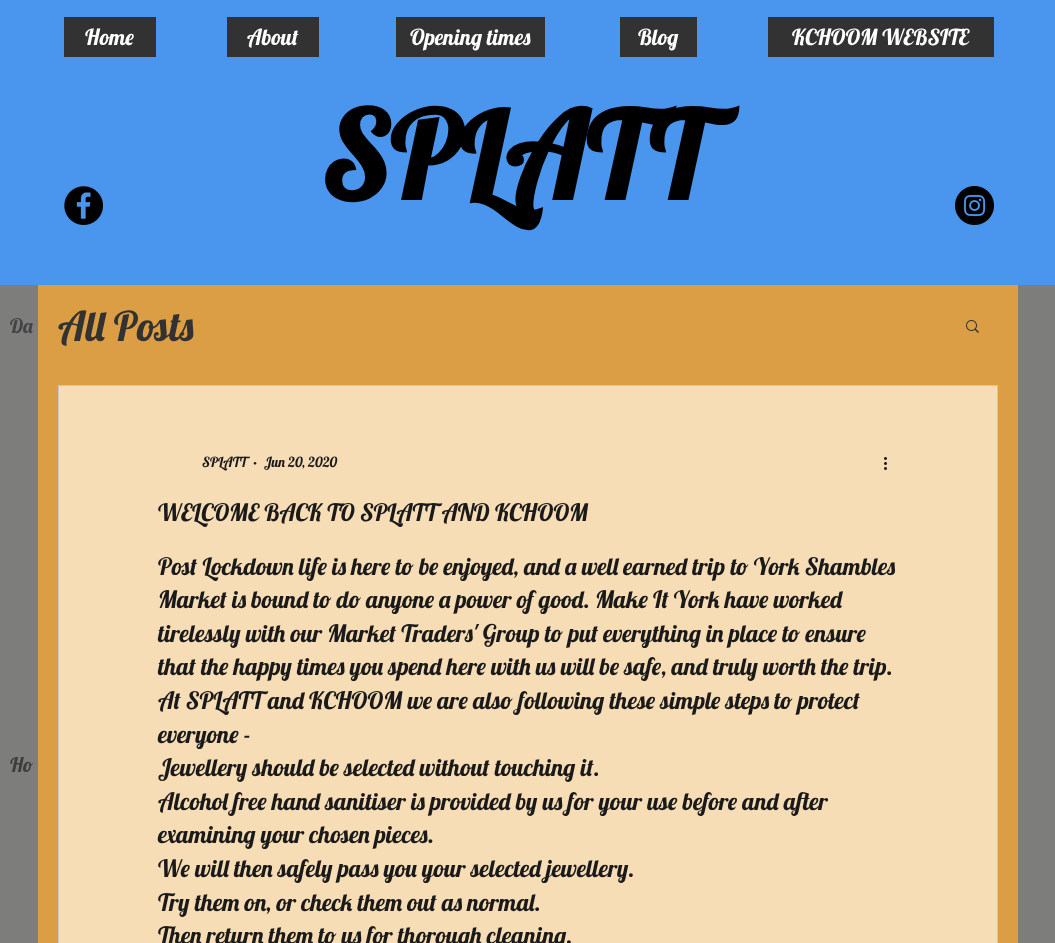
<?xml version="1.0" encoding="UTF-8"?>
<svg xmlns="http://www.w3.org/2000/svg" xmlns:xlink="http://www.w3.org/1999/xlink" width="1055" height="943">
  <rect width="100%" height="100%" fill="#7d7d7c" />
  <rect width="1055" height="285" fill="#4a95ed" />
  <rect x="64" y="17" width="92" height="40" fill="#323232" />
  <rect x="227" y="17" width="92" height="40" fill="#323232" />
  <rect x="396" y="17" width="149" height="40" fill="#323232" />
  <rect x="620" y="17" width="77" height="40" fill="#323232" />
  <rect x="768" y="17" width="226" height="40" fill="#323232" />
  <image x="64" y="186" width="39" height="39" xlink:href="image1.png" />
  <image x="955" y="186" width="39" height="39" xlink:href="image2.png" />
  <rect x="38" y="285" width="980" height="658" fill="#db9e44" />
  <image x="966" y="320" width="13" height="13" xlink:href="image3.png" />
  <rect x="58.5" y="385.5" width="939" height="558" fill="#f7ddb5" stroke="#c7c7c7" />
  <image x="884" y="457" width="3" height="13" xlink:href="image4.png" />
  <text x="85" y="45" style="font-family: Lobster; font-size: 22px; fill: #ffffff">Home</text>
  <text x="247" y="45" style="font-family: Lobster; font-size: 22px; fill: #ffffff">About</text>
  <text x="410" y="45" style="font-family: Lobster; font-size: 22px; fill: #ffffff">Opening times</text>
  <text x="638" y="45" style="font-family: Lobster; font-size: 22px; fill: #ffffff">Blog</text>
  <text x="792" y="45" style="font-family: Lobster; font-size: 22px; fill: #ffffff">KCHOOM WEBSITE</text>
  <text x="321" y="200" style="font-family: Lobster; font-size: 121px; font-weight: bold; fill: #000000">SPLATT</text>
  <text x="10" y="333" style="font-family: Lobster; font-size: 20px; fill: #444444">Da</text>
  <text x="10" y="772" style="font-family: Lobster; font-size: 20px; fill: #3d3d3c">Ho</text>
  <text x="58" y="341" style="font-family: Lobster; font-size: 41px; fill: #323232">All Posts</text>
  <text x="202" y="467" style="font-family: Lobster; font-size: 14px; fill: #1a1a1a">SPLATT</text>
  <text x="252" y="467" style="font-family: Lobster; font-size: 14px; fill: #1a1a1a">·</text>
  <text x="264" y="467" style="font-family: Lobster; font-size: 14px; fill: #1a1a1a">Jun 20, 2020</text>
  <text x="158" y="521" style="font-family: Lobster; font-size: 24px; fill: #1a1a1a">WELCOME BACK TO SPLATT AND KCHOOM</text>
  <text x="158" y="575" style="font-family: Lobster; font-size: 24px; fill: #1a1a1a">Post Lockdown life is here to be enjoyed, and a well earned trip to York Shambles</text>
  <text x="158" y="608" style="font-family: Lobster; font-size: 24px; fill: #1a1a1a">Market is bound to do anyone a power of good. Make It York have worked</text>
  <text x="158" y="642" style="font-family: Lobster; font-size: 24px; fill: #1a1a1a">tirelessly with our Market Traders' Group to put everything in place to ensure</text>
  <text x="158" y="675" style="font-family: Lobster; font-size: 24px; fill: #1a1a1a">that the happy times you spend here with us will be safe, and truly worth the trip.</text>
  <text x="158" y="709" style="font-family: Lobster; font-size: 24px; fill: #1a1a1a">At SPLATT and KCHOOM we are also following these simple steps to protect</text>
  <text x="158" y="743" style="font-family: Lobster; font-size: 24px; fill: #1a1a1a">everyone -</text>
  <text x="158" y="776" style="font-family: Lobster; font-size: 24px; fill: #1a1a1a">Jewellery should be selected without touching it.</text>
  <text x="158" y="810" style="font-family: Lobster; font-size: 24px; fill: #1a1a1a">Alcohol free hand sanitiser is provided by us for your use before and after</text>
  <text x="158" y="843" style="font-family: Lobster; font-size: 24px; fill: #1a1a1a">examining your chosen pieces.</text>
  <text x="158" y="877" style="font-family: Lobster; font-size: 24px; fill: #1a1a1a">We will then safely pass you your selected jewellery.</text>
  <text x="158" y="911" style="font-family: Lobster; font-size: 24px; fill: #1a1a1a">Try them on, or check them out as normal.</text>
  <text x="158" y="944" style="font-family: Lobster; font-size: 24px; fill: #1a1a1a">Then return them to us for thorough cleaning.</text>
</svg>
